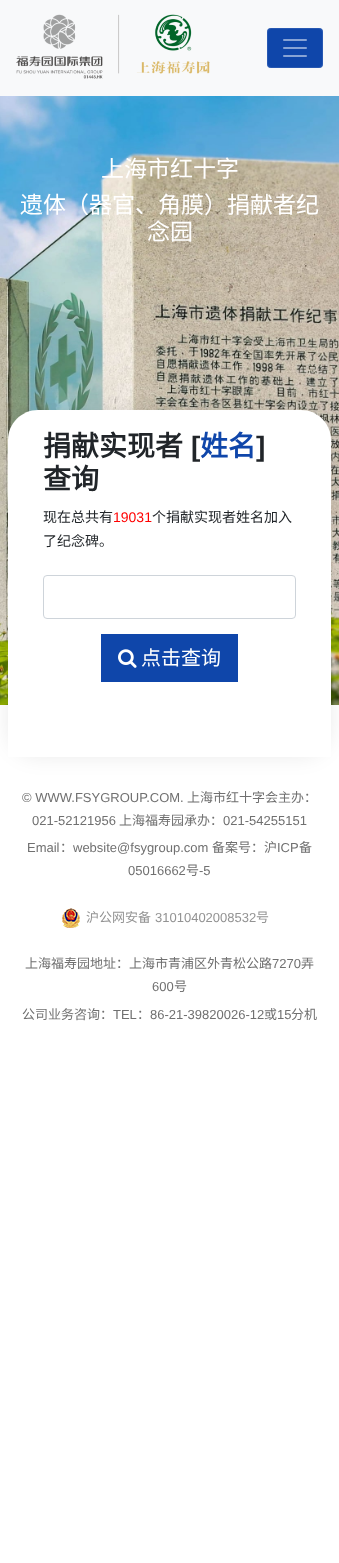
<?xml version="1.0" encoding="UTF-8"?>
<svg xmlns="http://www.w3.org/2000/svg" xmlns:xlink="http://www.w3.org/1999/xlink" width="339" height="1563">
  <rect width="100%" height="100%" fill="#ffffff" />
  <rect width="339" height="96" fill="#f8f9fa" />
  <image x="16" y="14" width="194" height="65" xlink:href="image1.png" />
  <rect x="267" y="28" width="56" height="40" rx="4" fill="#0f46aa" />
  <rect x="267.5" y="28.5" width="55" height="39" rx="3.5" fill="none" stroke="#ffffff" stroke-opacity="0.1" />
  <image x="283" y="39" width="24" height="18" xlink:href="image2.png" />
  <image x="0" y="96" width="339" height="609" xlink:href="image3.png" />
  <rect x="8" y="410" width="323" height="347" rx="30" fill="#000000" fill-opacity="0.08" filter="blur(10px)" />
  <path d="M 38 410 h 263 c 16.5 0 30 13.5 30 30 v 317 h -323 v -317 c 0 -16.5 13.5 -30 30 -30 z" fill="#ffffff" />
  <rect x="43.5" y="575.5" width="252" height="43" rx="3.5" fill="none" stroke="#ced4da" />
  <rect x="101" y="634" width="137" height="48" fill="#0f46aa" />
  <image x="118" y="649" width="19" height="19" xlink:href="image4.png" />
  <image x="62" y="908" width="18" height="20" xlink:href="image5.png" />
  <text x="101" y="177" style="font-family: Noto Sans CJK SC; font-size: 23px; fill: #ffffff">上海市红十字</text>
  <text x="20" y="213" style="font-family: Noto Sans CJK SC; font-size: 23px; fill: #ffffff">遗体（器官、角膜）捐献者纪</text>
  <text x="147" y="240" style="font-family: Noto Sans CJK SC; font-size: 23px; fill: #ffffff">念园</text>
  <text x="43" y="456" style="font-family: Noto Sans CJK SC; font-size: 28px; font-weight: bold; fill: #212529">捐献实现者</text>
  <text x="191" y="456" style="font-family: Liberation Sans; font-size: 28px; font-weight: bold; fill: #212529">[</text>
  <text x="200" y="456" style="font-family: Noto Sans CJK SC; font-size: 28px; font-weight: bold; fill: #0f46aa">姓名</text>
  <text x="256" y="456" style="font-family: Liberation Sans; font-size: 28px; font-weight: bold; fill: #212529">]</text>
  <text x="43" y="489" style="font-family: Noto Sans CJK SC; font-size: 28px; font-weight: bold; fill: #212529">查询</text>
  <text x="43" y="522" style="font-family: Noto Sans CJK SC; font-size: 14px; fill: #212529">现在总共有</text>
  <text x="113" y="522" style="font-family: Liberation Sans; font-size: 14px; fill: #ff0000">19031</text>
  <text x="152" y="522" style="font-family: Noto Sans CJK SC; font-size: 14px; fill: #212529">个捐献实现者姓名加入</text>
  <text x="43" y="546" style="font-family: Noto Sans CJK SC; font-size: 14px; fill: #212529">了纪念碑。</text>
  <text x="141" y="665" style="font-family: Noto Sans CJK SC; font-size: 20px; fill: #ffffff">点击查询</text>
  <text x="22" y="802" style="font-family: Liberation Sans; font-size: 13px; fill: #707070">© WWW.FSYGROUP.COM.</text>
  <text x="187" y="802" style="font-family: Noto Sans CJK SC; font-size: 13px; fill: #707070">上海市红十字会主办：</text>
  <text x="32" y="825" style="font-family: Liberation Sans; font-size: 13px; fill: #707070">021-52121956</text>
  <text x="119" y="825" style="font-family: Noto Sans CJK SC; font-size: 13px; fill: #707070">上海福寿园承办：</text>
  <text x="223" y="825" style="font-family: Liberation Sans; font-size: 13px; fill: #707070">021-54255151</text>
  <text x="27" y="852" style="font-family: Liberation Sans; font-size: 13px; fill: #707070">Email</text>
  <text x="60" y="852" style="font-family: Noto Sans CJK SC; font-size: 13px; fill: #707070">：</text>
  <text x="73" y="852" style="font-family: Liberation Sans; font-size: 13px; fill: #707070">website@fsygroup.com</text>
  <text x="212" y="852" style="font-family: Noto Sans CJK SC; font-size: 13px; fill: #707070">备案号：沪</text>
  <text x="277" y="852" style="font-family: Liberation Sans; font-size: 13px; fill: #707070">ICP</text>
  <text x="299" y="852" style="font-family: Noto Sans CJK SC; font-size: 13px; fill: #707070">备</text>
  <text x="128" y="875" style="font-family: Liberation Sans; font-size: 13px; fill: #707070">05016662</text>
  <text x="186" y="875" style="font-family: Noto Sans CJK SC; font-size: 13px; fill: #707070">号</text>
  <text x="199" y="875" style="font-family: Liberation Sans; font-size: 13px; fill: #707070">-5</text>
  <text x="86" y="922" style="font-family: Noto Sans CJK SC; font-size: 13px; fill: #939393">沪公网安备</text>
  <text x="155" y="922" style="font-family: Liberation Sans; font-size: 13px; fill: #939393">31010402008532</text>
  <text x="256" y="922" style="font-family: Noto Sans CJK SC; font-size: 13px; fill: #939393">号</text>
  <text x="25" y="968" style="font-family: Noto Sans CJK SC; font-size: 13px; fill: #707070">上海福寿园地址：上海市青浦区外青松公路</text>
  <text x="272" y="968" style="font-family: Liberation Sans; font-size: 13px; fill: #707070">7270</text>
  <text x="301" y="968" style="font-family: Noto Sans CJK SC; font-size: 13px; fill: #707070">弄</text>
  <text x="152" y="991" style="font-family: Liberation Sans; font-size: 13px; fill: #707070">600</text>
  <text x="174" y="991" style="font-family: Noto Sans CJK SC; font-size: 13px; fill: #707070">号</text>
  <text x="22" y="1019" style="font-family: Noto Sans CJK SC; font-size: 13px; fill: #707070">公司业务咨询：</text>
  <text x="113" y="1019" style="font-family: Liberation Sans; font-size: 13px; fill: #707070">TEL</text>
  <text x="137" y="1019" style="font-family: Noto Sans CJK SC; font-size: 13px; fill: #707070">：</text>
  <text x="150" y="1019" style="font-family: Liberation Sans; font-size: 13px; fill: #707070">86-21-39820026-12</text>
  <text x="264" y="1019" style="font-family: Noto Sans CJK SC; font-size: 13px; fill: #707070">或</text>
  <text x="277" y="1019" style="font-family: Liberation Sans; font-size: 13px; fill: #707070">15</text>
  <text x="291" y="1019" style="font-family: Noto Sans CJK SC; font-size: 13px; fill: #707070">分机</text>
</svg>
